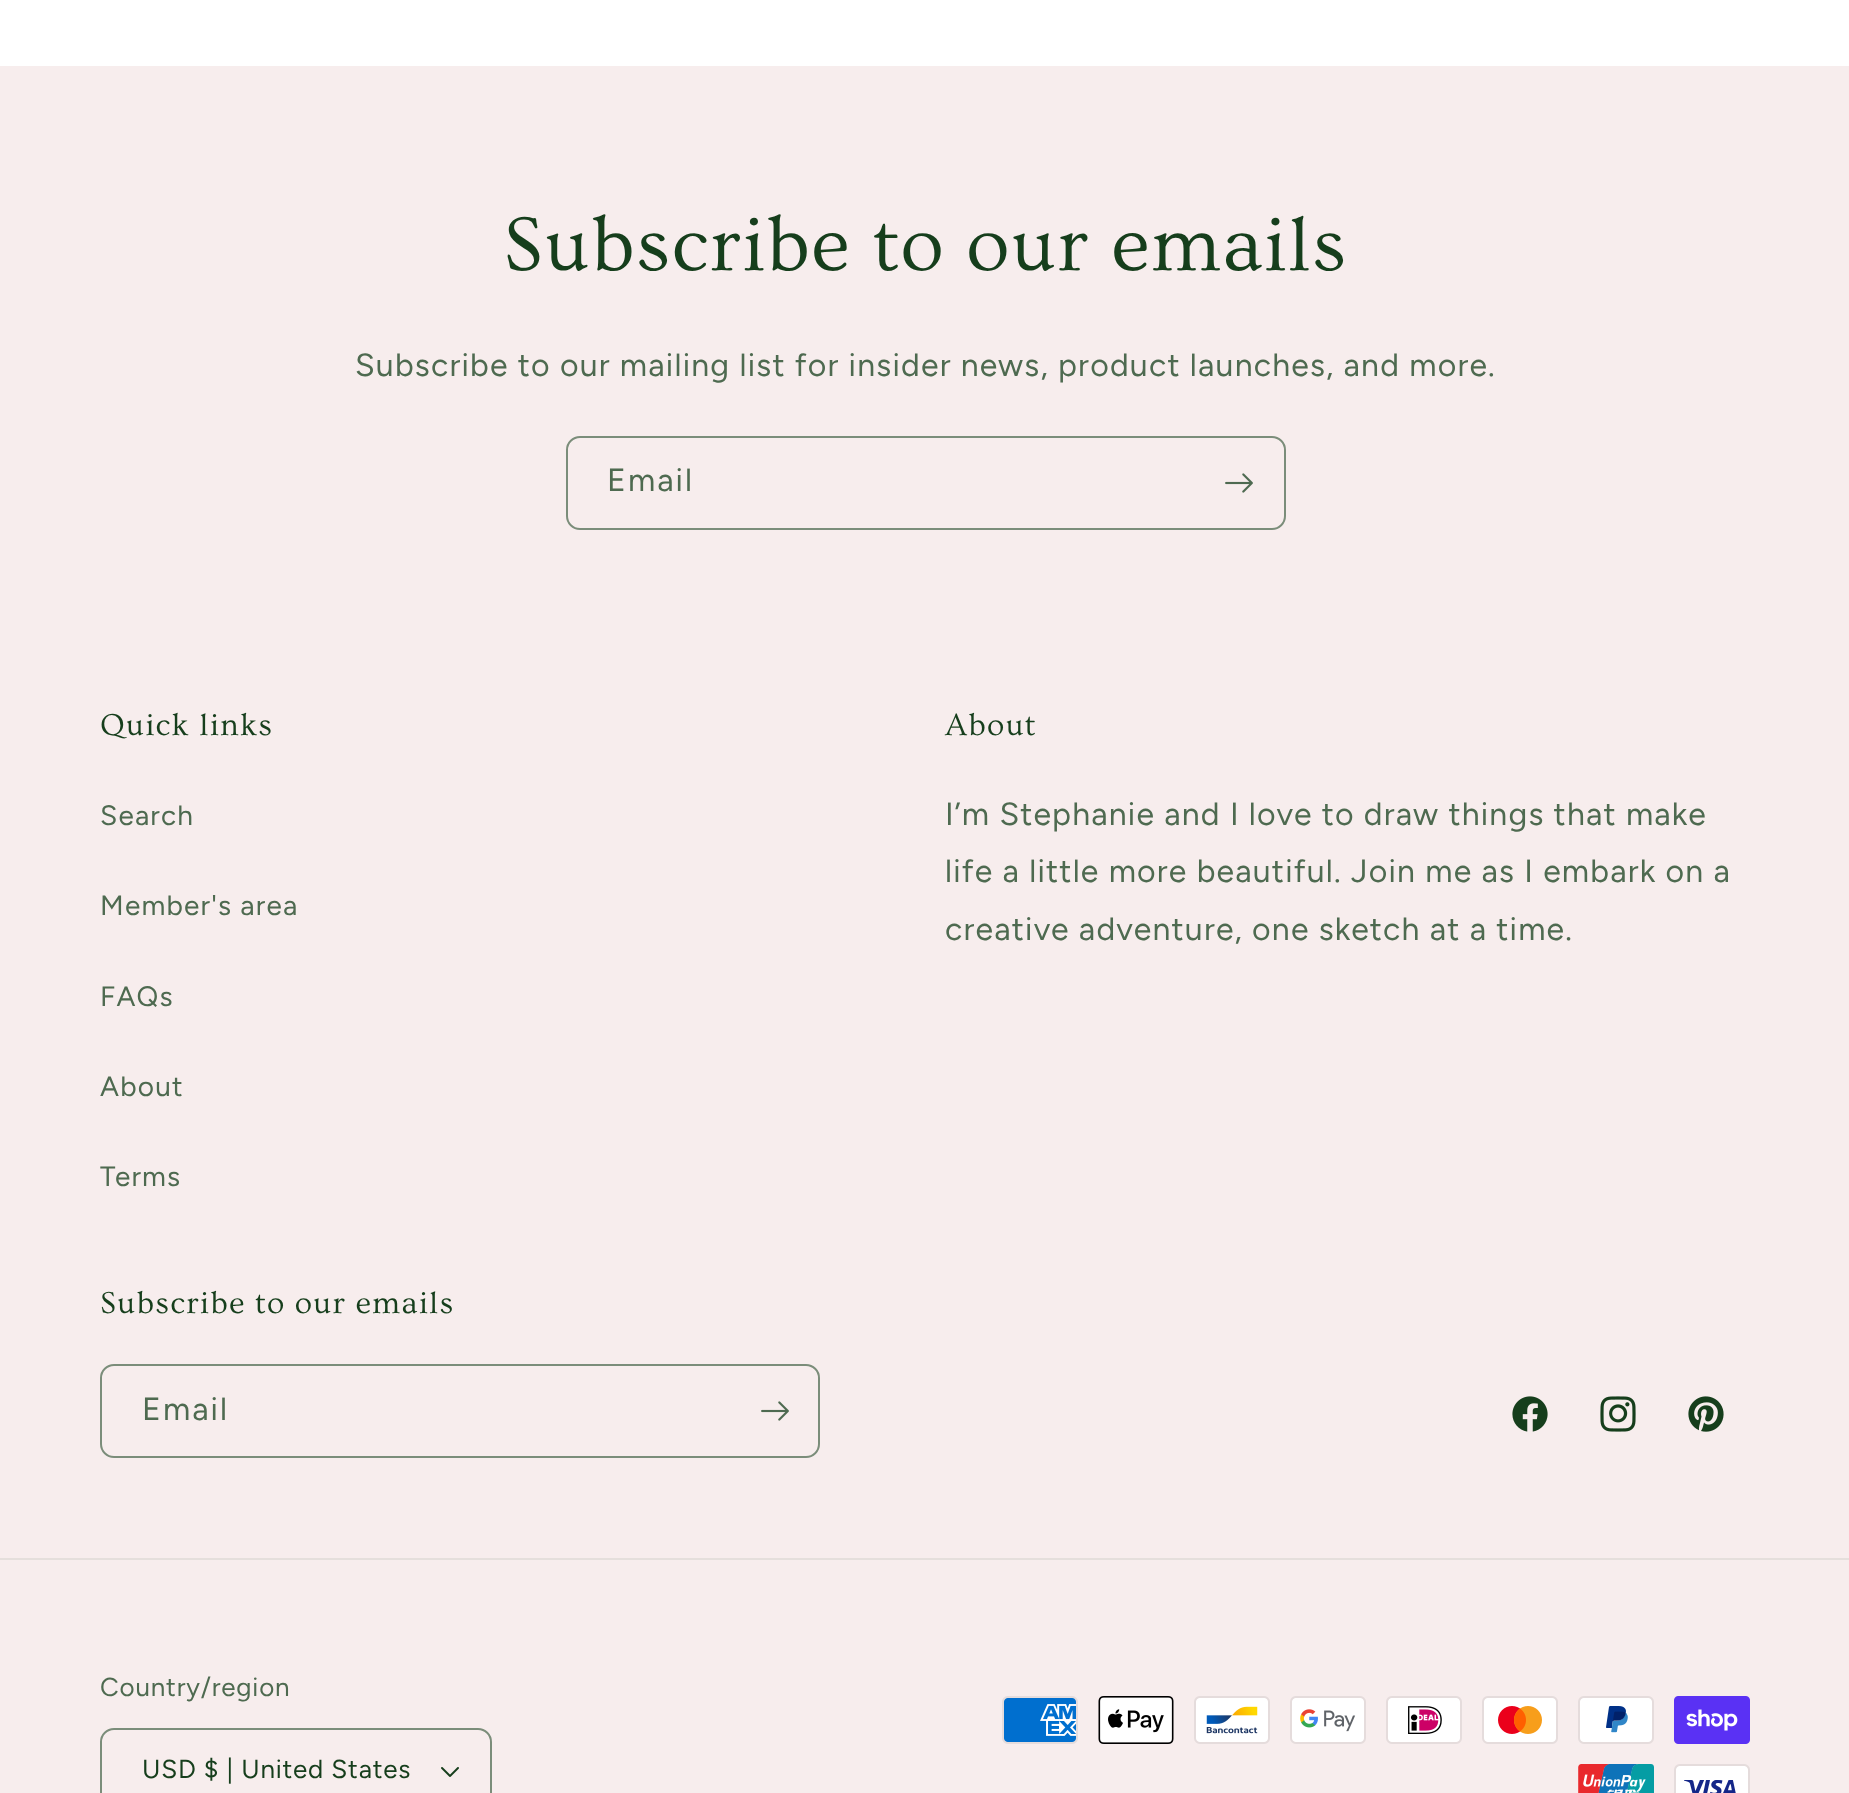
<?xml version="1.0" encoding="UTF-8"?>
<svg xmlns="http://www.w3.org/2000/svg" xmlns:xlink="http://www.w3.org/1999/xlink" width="1849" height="1793">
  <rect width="100%" height="100%" fill="#ffffff" />
  <rect y="66" width="1849" height="1727" fill="#f7eded" />
  <rect x="567" y="437" width="718" height="92" rx="13" fill="none" stroke="#7b8d7a" stroke-width="2" />
  <image x="1225" y="473" width="28" height="20" xlink:href="image1.png" />
  <rect x="101" y="1365" width="718" height="92" rx="13" fill="none" stroke="#7b8d7a" stroke-width="2" />
  <image x="761" y="1401" width="28" height="20" xlink:href="image1.png" />
  <image x="1512" y="1396" width="36" height="36" xlink:href="image2.png" />
  <image x="1600" y="1396" width="36" height="36" xlink:href="image3.png" />
  <image x="1688" y="1396" width="36" height="36" xlink:href="image4.png" />
  <rect y="1558" width="1849" height="2" fill="#e5dfdc" />
  <image x="441" y="1767" width="18" height="10" xlink:href="image5.png" />
  <rect x="101" y="1729" width="390" height="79" rx="13" fill="none" stroke="#7b8d7a" stroke-width="2" />
  <image x="1002" y="1696" width="76" height="48" xlink:href="image6.png" />
  <image x="1098" y="1696" width="76" height="48" xlink:href="image7.png" />
  <image x="1194" y="1696" width="76" height="48" xlink:href="image8.png" />
  <image x="1290" y="1696" width="76" height="48" xlink:href="image9.png" />
  <image x="1386" y="1696" width="76" height="48" xlink:href="image10.png" />
  <image x="1482" y="1696" width="76" height="48" xlink:href="image11.png" />
  <image x="1578" y="1696" width="76" height="48" xlink:href="image12.png" />
  <image x="1674" y="1696" width="76" height="48" xlink:href="image13.png" />
  <image x="1578" y="1764" width="76" height="29" xlink:href="image14.png" />
  <image x="1674" y="1764" width="76" height="29" xlink:href="image15.png" />
  <text x="503" y="270" style="font-family: Ovo; font-size: 80px; letter-spacing: 1.2px; fill: #163e1c">Subscribe to our emails</text>
  <text x="355" y="376" style="font-family: Figtree; font-size: 32px; letter-spacing: 1.2px; fill: #4e6a50">Subscribe to our mailing list for insider news, product launches, and more.</text>
  <text x="607" y="491" style="font-family: Figtree; font-size: 32px; letter-spacing: 2px; fill: #4e6a50">Email</text>
  <text x="100" y="735" style="font-family: Ovo; font-size: 32px; letter-spacing: 1.2px; fill: #163e1c">Quick links</text>
  <text x="100" y="825" style="font-family: Figtree; font-size: 28px; letter-spacing: 1.2px; fill: #4e6a50">Search</text>
  <text x="100" y="915" style="font-family: Figtree; font-size: 28px; letter-spacing: 1.2px; fill: #4e6a50">Member's area</text>
  <text x="100" y="1006" style="font-family: Figtree; font-size: 28px; letter-spacing: 1.2px; fill: #4e6a50">FAQs</text>
  <text x="100" y="1096" style="font-family: Figtree; font-size: 28px; letter-spacing: 1.2px; fill: #4e6a50">About</text>
  <text x="100" y="1186" style="font-family: Figtree; font-size: 28px; letter-spacing: 1.2px; fill: #4e6a50">Terms</text>
  <text x="945" y="735" style="font-family: Ovo; font-size: 32px; letter-spacing: 1.2px; fill: #163e1c">About</text>
  <text x="945" y="825" style="font-family: Figtree; font-size: 32px; letter-spacing: 1.2px; fill: #4e6a50">I’m Stephanie and I love to draw things that make</text>
  <text x="945" y="882" style="font-family: Figtree; font-size: 32px; letter-spacing: 1.2px; fill: #4e6a50">life a little more beautiful. Join me as I embark on a</text>
  <text x="945" y="940" style="font-family: Figtree; font-size: 32px; letter-spacing: 1.2px; fill: #4e6a50">creative adventure, one sketch at a time.</text>
  <text x="100" y="1313" style="font-family: Ovo; font-size: 32px; letter-spacing: 1.2px; fill: #163e1c">Subscribe to our emails</text>
  <text x="142" y="1420" style="font-family: Figtree; font-size: 32px; letter-spacing: 2px; fill: #4e6a50">Email</text>
  <text x="100" y="1696" style="font-family: Figtree; font-size: 26px; letter-spacing: 0.8px; fill: #4e6a50">Country/region</text>
  <text x="142" y="1778" style="font-family: Figtree; font-size: 26px; letter-spacing: 0.8px; fill: #163e1c">USD $ | United States</text>
</svg>
